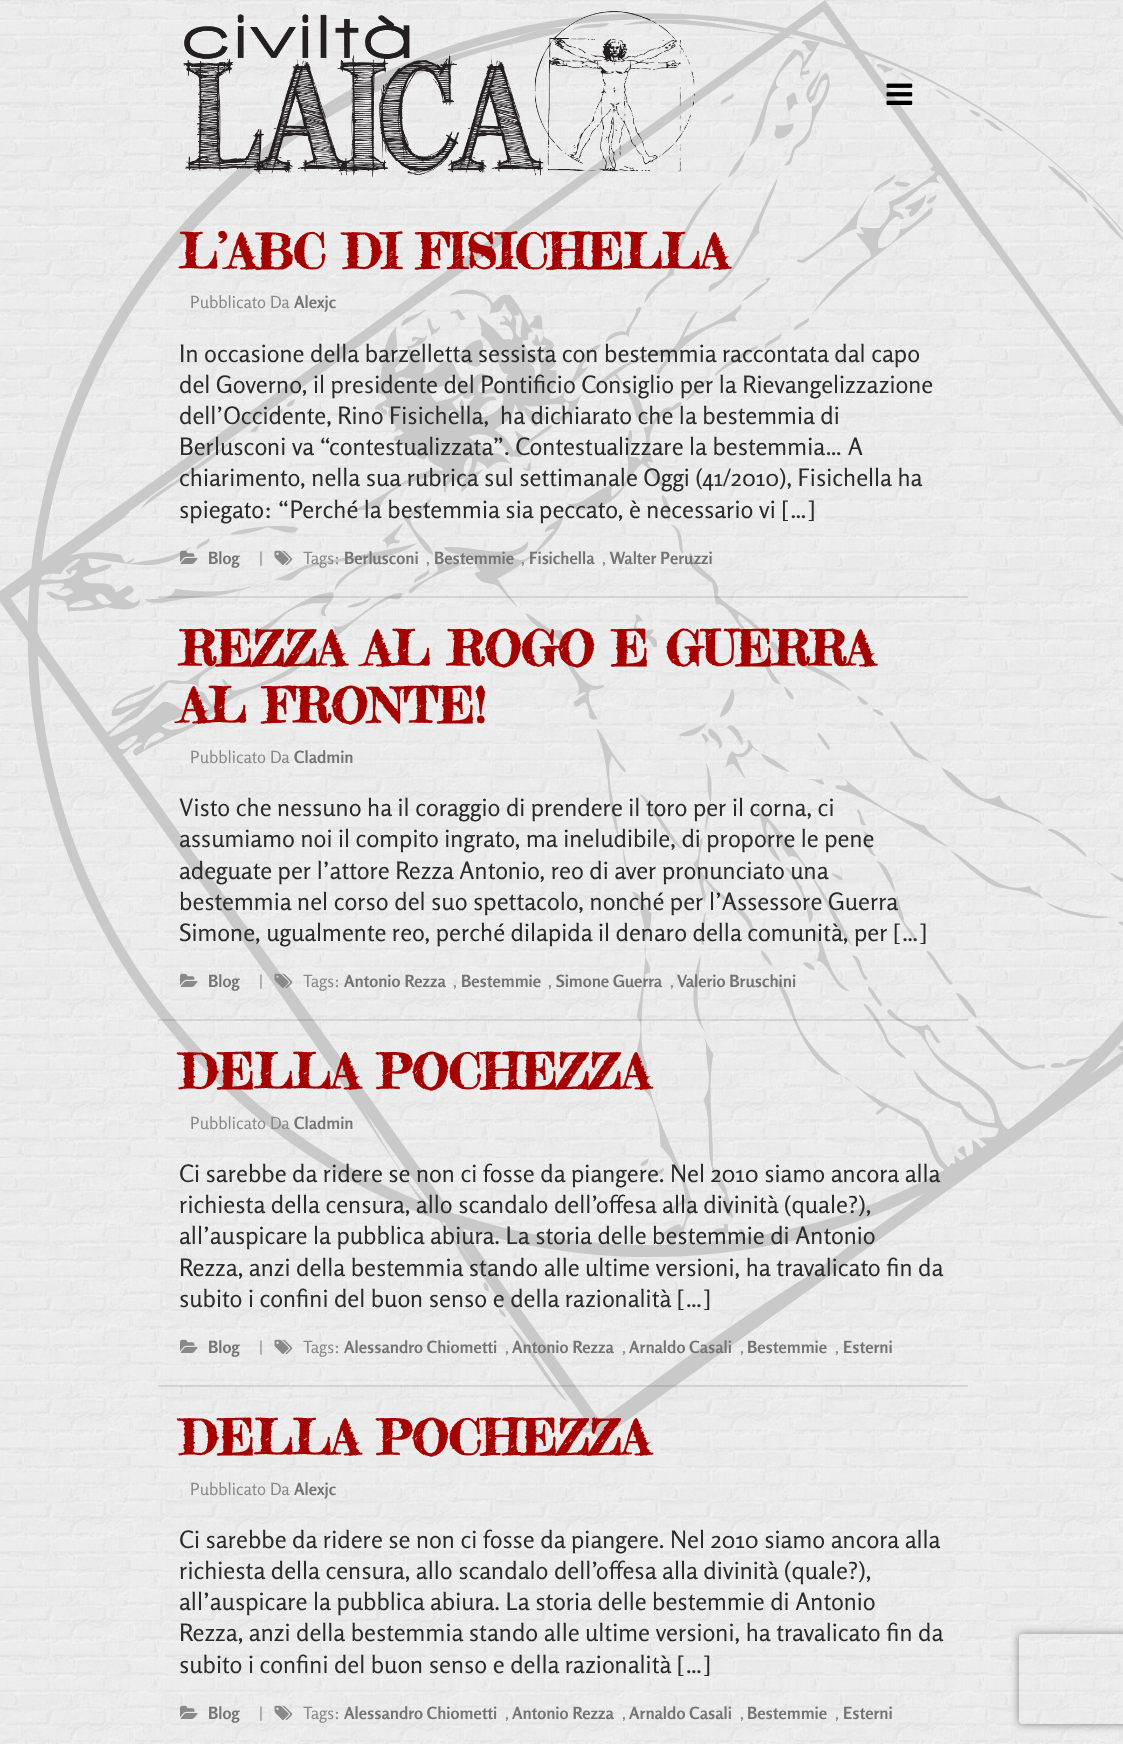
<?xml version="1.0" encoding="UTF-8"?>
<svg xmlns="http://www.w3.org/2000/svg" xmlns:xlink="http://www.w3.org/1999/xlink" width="1123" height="1744">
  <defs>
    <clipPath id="clip1"><path d="M 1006 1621 h 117 v 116 h -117 z m 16 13 h 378 c 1.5 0 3 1.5 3 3 v 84 c 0 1.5 -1.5 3 -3 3 h -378 c -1.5 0 -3 -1.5 -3 -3 v -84 c 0 -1.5 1.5 -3 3 -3 z" clip-rule="evenodd" /></clipPath>
  </defs>
  <rect width="100%" height="100%" fill="#ffffff" />
  <image x="0" y="0" width="1123" height="1744" xlink:href="image1.png" />
  <image x="183" y="11" width="512" height="167" xlink:href="image2.png" />
  <image x="886" y="83" width="27" height="22" xlink:href="image3.png" />
  <rect x="158" y="596" width="810" height="2" fill="#010101" fill-opacity="0.1" />
  <image x="180" y="550" width="18" height="14" xlink:href="image4.png" />
  <image x="274" y="550" width="19" height="15" xlink:href="image5.png" />
  <rect x="158" y="1019" width="810" height="2" fill="#010101" fill-opacity="0.1" />
  <image x="180" y="973" width="18" height="14" xlink:href="image6.png" />
  <image x="274" y="973" width="19" height="15" xlink:href="image7.png" />
  <rect x="158" y="1385" width="810" height="2" fill="#010101" fill-opacity="0.1" />
  <image x="180" y="1339" width="18" height="14" xlink:href="image8.png" />
  <image x="274" y="1339" width="19" height="15" xlink:href="image9.png" />
  <image x="180" y="1705" width="18" height="14" xlink:href="image10.png" />
  <image x="274" y="1705" width="19" height="15" xlink:href="image11.png" />
  <g clip-path="url(#clip1)">
    <rect x="1019" y="1634" width="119" height="90" rx="3" fill="#808080" filter="blur(4px)" />
  </g>
  <text x="179" y="269" style="font-family: Fredericka the Great; font-size: 48px; font-weight: bold; fill: #a40301">L’ABC DI FISICHELLA</text>
  <text x="190" y="308" style="font-family: Rosario; font-size: 16.75px; fill: #898989">Pubblicato Da</text>
  <text x="294" y="308" style="font-family: Rosario; font-size: 16.75px; font-weight: bold; fill: #747474">Alexjc</text>
  <text x="179" y="362" style="font-family: Rosario; font-size: 24px; fill: #2b2b2b">In occasione della barzelletta sessista con bestemmia raccontata dal capo</text>
  <text x="179" y="393" style="font-family: Rosario; font-size: 24px; fill: #2b2b2b">del Governo, il presidente del Pontificio Consiglio per la Rievangelizzazione</text>
  <text x="179" y="424" style="font-family: Rosario; font-size: 24px; fill: #2b2b2b" xml:space="preserve">dell’Occidente, Rino Fisichella,  ha dichiarato che la bestemmia di</text>
  <text x="179" y="455" style="font-family: Rosario; font-size: 24px; fill: #2b2b2b">Berlusconi va “contestualizzata”. Contestualizzare la bestemmia… A</text>
  <text x="179" y="486" style="font-family: Rosario; font-size: 24px; fill: #2b2b2b">chiarimento, nella sua rubrica sul settimanale Oggi (41/2010), Fisichella ha</text>
  <text x="179" y="518" style="font-family: Rosario; font-size: 24px; fill: #2b2b2b">spiegato: “Perché la bestemmia sia peccato, è necessario vi […]</text>
  <text x="208" y="564" style="font-family: Rosario; font-size: 16.75px; font-weight: bold; fill: #747474">Blog</text>
  <text x="259" y="564" style="font-family: Rosario; font-size: 16.75px; fill: #898989">|</text>
  <text x="303" y="564" style="font-family: Rosario; font-size: 16.75px; fill: #898989">Tags:</text>
  <text x="344" y="564" style="font-family: Rosario; font-size: 16.75px; font-weight: bold; fill: #747474">Berlusconi</text>
  <text x="426" y="564" style="font-family: Rosario; font-size: 16.75px; fill: #898989">,</text>
  <text x="434" y="564" style="font-family: Rosario; font-size: 16.75px; font-weight: bold; fill: #747474">Bestemmie</text>
  <text x="521" y="564" style="font-family: Rosario; font-size: 16.75px; fill: #898989">,</text>
  <text x="529" y="564" style="font-family: Rosario; font-size: 16.75px; font-weight: bold; fill: #747474">Fisichella</text>
  <text x="602" y="564" style="font-family: Rosario; font-size: 16.75px; fill: #898989">,</text>
  <text x="610" y="564" style="font-family: Rosario; font-size: 16.75px; font-weight: bold; fill: #747474">Walter Peruzzi</text>
  <text x="179" y="666" style="font-family: Fredericka the Great; font-size: 48px; font-weight: bold; fill: #a40301">REZZA AL ROGO E GUERRA</text>
  <text x="179" y="723" style="font-family: Fredericka the Great; font-size: 48px; font-weight: bold; fill: #a40301">AL FRONTE!</text>
  <text x="190" y="763" style="font-family: Rosario; font-size: 16.75px; fill: #898989">Pubblicato Da</text>
  <text x="294" y="763" style="font-family: Rosario; font-size: 16.75px; font-weight: bold; fill: #747474">Cladmin</text>
  <text x="179" y="816" style="font-family: Rosario; font-size: 24px; fill: #2b2b2b">Visto che nessuno ha il coraggio di prendere il toro per il corna, ci</text>
  <text x="179" y="847" style="font-family: Rosario; font-size: 24px; fill: #2b2b2b">assumiamo noi il compito ingrato, ma ineludibile, di proporre le pene</text>
  <text x="179" y="879" style="font-family: Rosario; font-size: 24px; fill: #2b2b2b">adeguate per l’attore Rezza Antonio, reo di aver pronunciato una</text>
  <text x="179" y="910" style="font-family: Rosario; font-size: 24px; fill: #2b2b2b">bestemmia nel corso del suo spettacolo, nonché per l’Assessore Guerra</text>
  <text x="179" y="941" style="font-family: Rosario; font-size: 24px; fill: #2b2b2b">Simone, ugualmente reo, perché dilapida il denaro della comunità, per […]</text>
  <text x="208" y="987" style="font-family: Rosario; font-size: 16.75px; font-weight: bold; fill: #747474">Blog</text>
  <text x="259" y="987" style="font-family: Rosario; font-size: 16.75px; fill: #898989">|</text>
  <text x="303" y="987" style="font-family: Rosario; font-size: 16.75px; fill: #898989">Tags:</text>
  <text x="344" y="987" style="font-family: Rosario; font-size: 16.75px; font-weight: bold; fill: #747474">Antonio Rezza</text>
  <text x="453" y="987" style="font-family: Rosario; font-size: 16.75px; fill: #898989">,</text>
  <text x="461" y="987" style="font-family: Rosario; font-size: 16.75px; font-weight: bold; fill: #747474">Bestemmie</text>
  <text x="548" y="987" style="font-family: Rosario; font-size: 16.75px; fill: #898989">,</text>
  <text x="556" y="987" style="font-family: Rosario; font-size: 16.75px; font-weight: bold; fill: #747474">Simone Guerra</text>
  <text x="670" y="987" style="font-family: Rosario; font-size: 16.75px; fill: #898989">,</text>
  <text x="677" y="987" style="font-family: Rosario; font-size: 16.75px; font-weight: bold; fill: #747474">Valerio Bruschini</text>
  <text x="179" y="1089" style="font-family: Fredericka the Great; font-size: 48px; font-weight: bold; fill: #a40301">DELLA POCHEZZA</text>
  <text x="190" y="1129" style="font-family: Rosario; font-size: 16.75px; fill: #898989">Pubblicato Da</text>
  <text x="294" y="1129" style="font-family: Rosario; font-size: 16.75px; font-weight: bold; fill: #747474">Cladmin</text>
  <text x="179" y="1182" style="font-family: Rosario; font-size: 24px; fill: #2b2b2b">Ci sarebbe da ridere se non ci fosse da piangere. Nel 2010 siamo ancora alla</text>
  <text x="179" y="1213" style="font-family: Rosario; font-size: 24px; fill: #2b2b2b">richiesta della censura, allo scandalo dell’offesa alla divinità (quale?),</text>
  <text x="179" y="1244" style="font-family: Rosario; font-size: 24px; fill: #2b2b2b">all’auspicare la pubblica abiura. La storia delle bestemmie di Antonio</text>
  <text x="179" y="1276" style="font-family: Rosario; font-size: 24px; fill: #2b2b2b">Rezza, anzi della bestemmia stando alle ultime versioni, ha travalicato fin da</text>
  <text x="179" y="1307" style="font-family: Rosario; font-size: 24px; fill: #2b2b2b">subito i confini del buon senso e della razionalità […]</text>
  <text x="208" y="1353" style="font-family: Rosario; font-size: 16.75px; font-weight: bold; fill: #747474">Blog</text>
  <text x="259" y="1353" style="font-family: Rosario; font-size: 16.75px; fill: #898989">|</text>
  <text x="303" y="1353" style="font-family: Rosario; font-size: 16.75px; fill: #898989">Tags:</text>
  <text x="344" y="1353" style="font-family: Rosario; font-size: 16.75px; font-weight: bold; fill: #747474">Alessandro Chiometti</text>
  <text x="505" y="1353" style="font-family: Rosario; font-size: 16.75px; fill: #898989">,</text>
  <text x="512" y="1353" style="font-family: Rosario; font-size: 16.75px; font-weight: bold; fill: #747474">Antonio Rezza</text>
  <text x="622" y="1353" style="font-family: Rosario; font-size: 16.75px; fill: #898989">,</text>
  <text x="629" y="1353" style="font-family: Rosario; font-size: 16.75px; font-weight: bold; fill: #747474">Arnaldo Casali</text>
  <text x="740" y="1353" style="font-family: Rosario; font-size: 16.75px; fill: #898989">,</text>
  <text x="747" y="1353" style="font-family: Rosario; font-size: 16.75px; font-weight: bold; fill: #747474">Bestemmie</text>
  <text x="835" y="1353" style="font-family: Rosario; font-size: 16.75px; fill: #898989">,</text>
  <text x="843" y="1353" style="font-family: Rosario; font-size: 16.75px; font-weight: bold; fill: #747474">Esterni</text>
  <text x="179" y="1455" style="font-family: Fredericka the Great; font-size: 48px; font-weight: bold; fill: #a40301">DELLA POCHEZZA</text>
  <text x="190" y="1495" style="font-family: Rosario; font-size: 16.75px; fill: #898989">Pubblicato Da</text>
  <text x="294" y="1495" style="font-family: Rosario; font-size: 16.75px; font-weight: bold; fill: #747474">Alexjc</text>
  <text x="179" y="1548" style="font-family: Rosario; font-size: 24px; fill: #2b2b2b">Ci sarebbe da ridere se non ci fosse da piangere. Nel 2010 siamo ancora alla</text>
  <text x="179" y="1579" style="font-family: Rosario; font-size: 24px; fill: #2b2b2b">richiesta della censura, allo scandalo dell’offesa alla divinità (quale?),</text>
  <text x="179" y="1610" style="font-family: Rosario; font-size: 24px; fill: #2b2b2b">all’auspicare la pubblica abiura. La storia delle bestemmie di Antonio</text>
  <text x="179" y="1641" style="font-family: Rosario; font-size: 24px; fill: #2b2b2b">Rezza, anzi della bestemmia stando alle ultime versioni, ha travalicato fin da</text>
  <text x="179" y="1673" style="font-family: Rosario; font-size: 24px; fill: #2b2b2b">subito i confini del buon senso e della razionalità […]</text>
  <text x="208" y="1719" style="font-family: Rosario; font-size: 16.75px; font-weight: bold; fill: #747474">Blog</text>
  <text x="259" y="1719" style="font-family: Rosario; font-size: 16.75px; fill: #898989">|</text>
  <text x="303" y="1719" style="font-family: Rosario; font-size: 16.75px; fill: #898989">Tags:</text>
  <text x="344" y="1719" style="font-family: Rosario; font-size: 16.75px; font-weight: bold; fill: #747474">Alessandro Chiometti</text>
  <text x="505" y="1719" style="font-family: Rosario; font-size: 16.75px; fill: #898989">,</text>
  <text x="512" y="1719" style="font-family: Rosario; font-size: 16.75px; font-weight: bold; fill: #747474">Antonio Rezza</text>
  <text x="622" y="1719" style="font-family: Rosario; font-size: 16.75px; fill: #898989">,</text>
  <text x="629" y="1719" style="font-family: Rosario; font-size: 16.75px; font-weight: bold; fill: #747474">Arnaldo Casali</text>
  <text x="740" y="1719" style="font-family: Rosario; font-size: 16.75px; fill: #898989">,</text>
  <text x="747" y="1719" style="font-family: Rosario; font-size: 16.75px; font-weight: bold; fill: #747474">Bestemmie</text>
  <text x="835" y="1719" style="font-family: Rosario; font-size: 16.75px; fill: #898989">,</text>
  <text x="843" y="1719" style="font-family: Rosario; font-size: 16.75px; font-weight: bold; fill: #747474">Esterni</text>
</svg>
